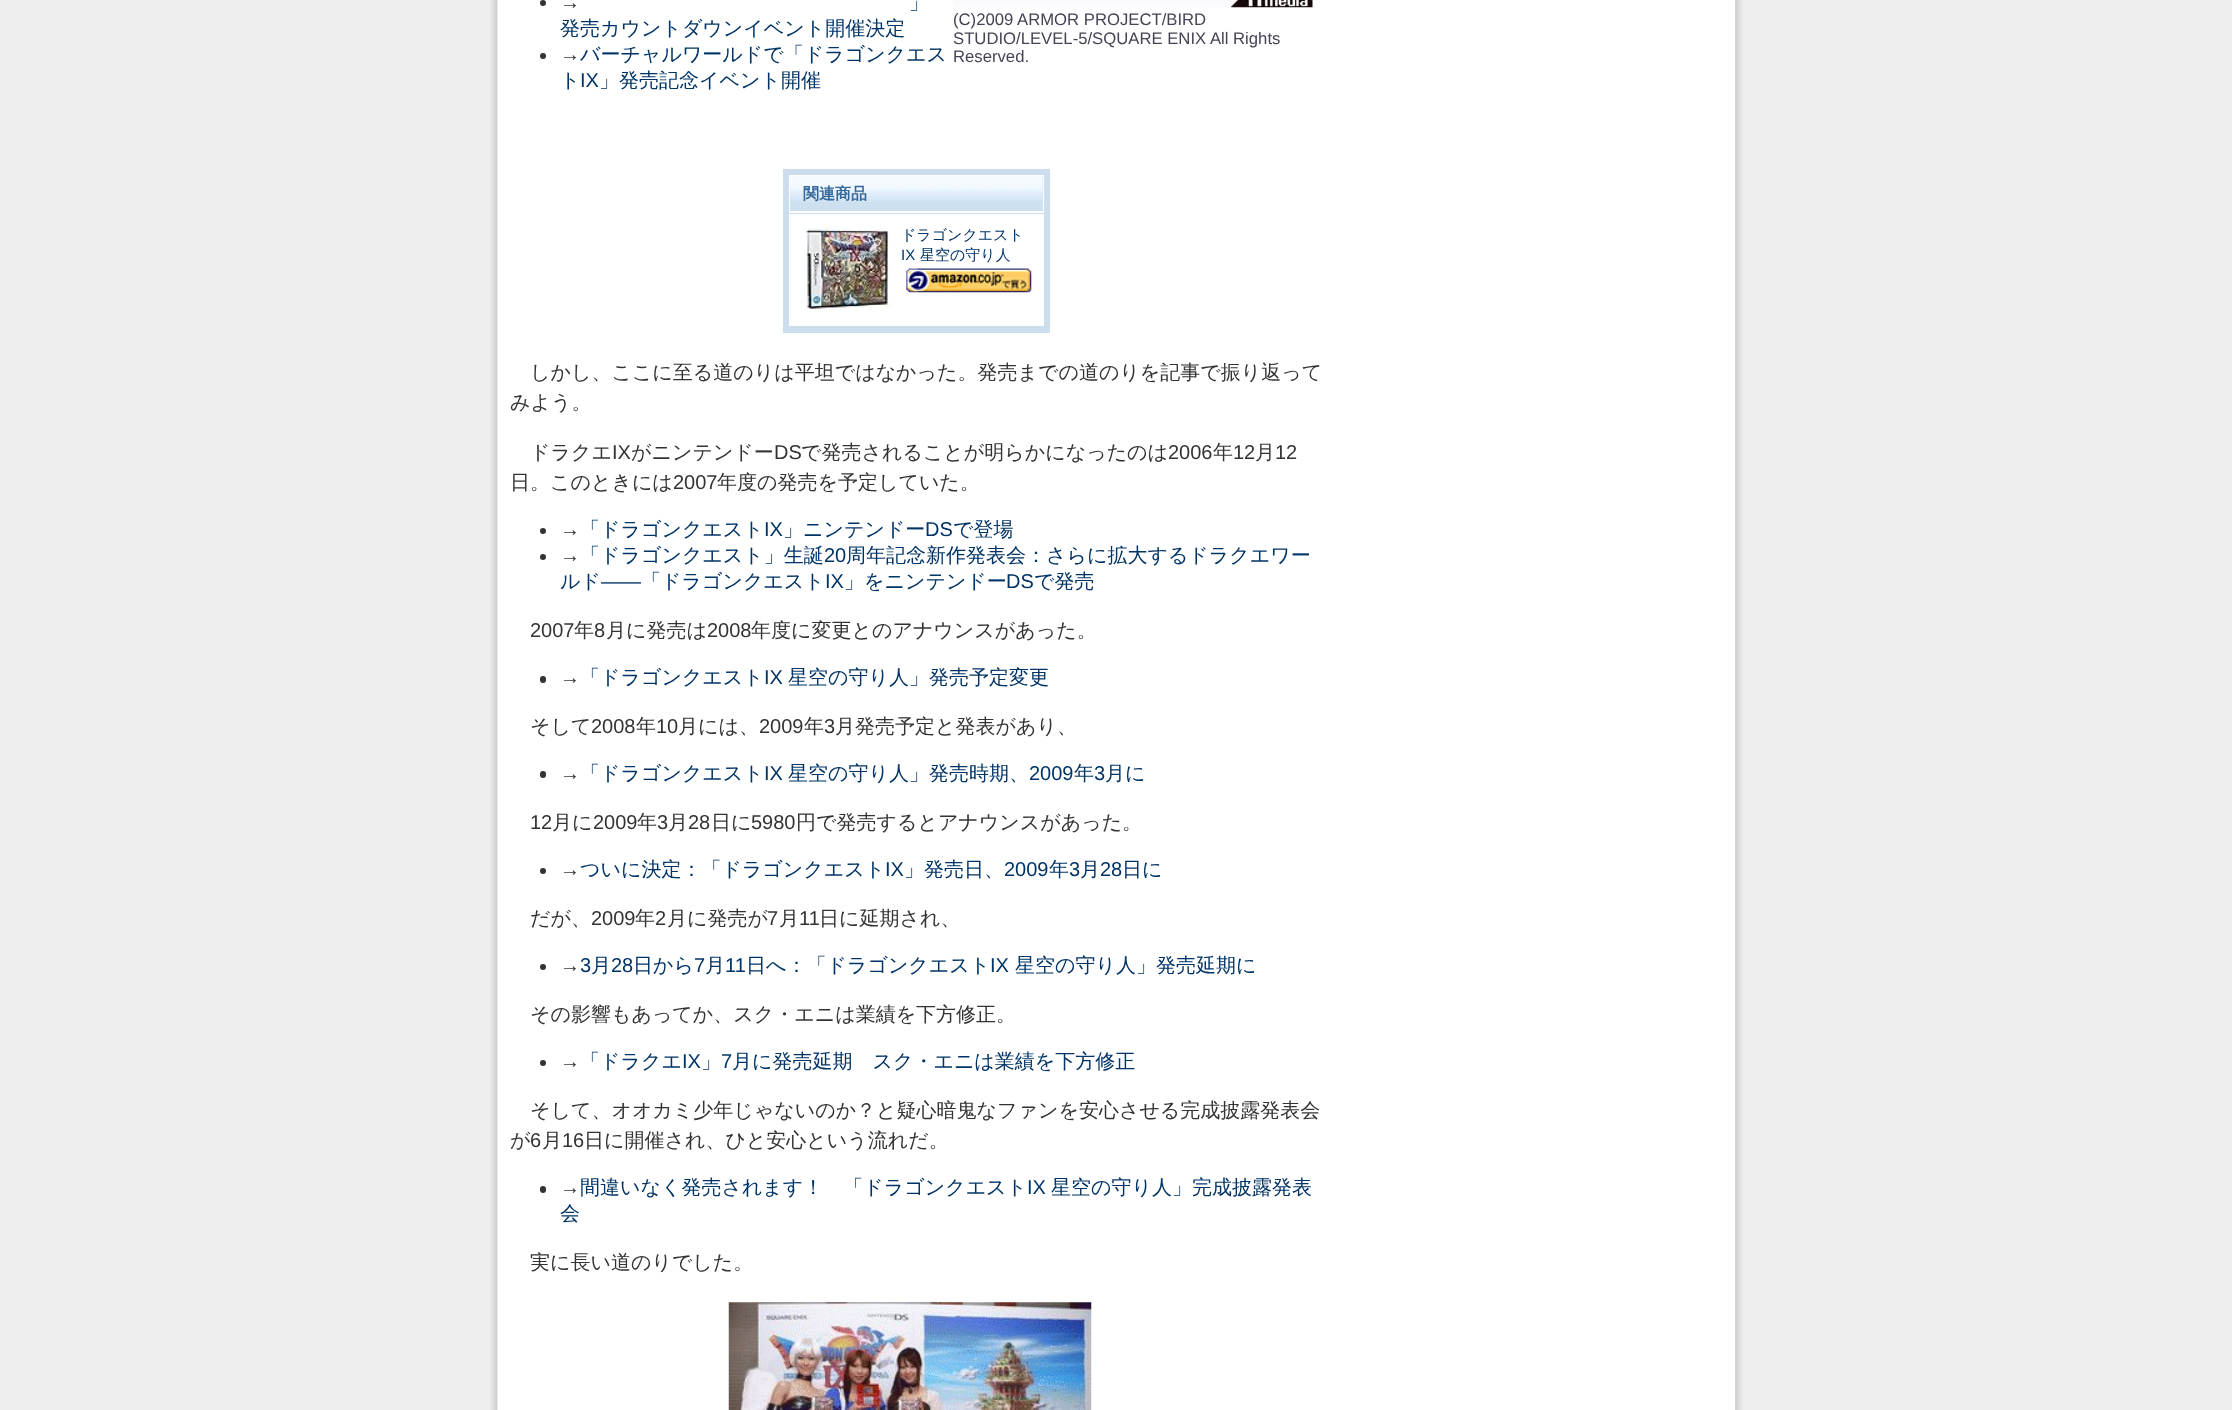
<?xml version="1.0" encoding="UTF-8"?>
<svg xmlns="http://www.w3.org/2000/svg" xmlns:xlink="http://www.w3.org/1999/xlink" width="2232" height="1410">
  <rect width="100%" height="100%" fill="#eeeeee" />
  <image x="490" y="0" width="1253" height="1410" xlink:href="image1.png" />
  <rect x="1734" width="1" height="1410" fill="#ffffff" />
  <circle cx="543" cy="3" r="3" fill="#333333" />
  <circle cx="543" cy="56" r="3" fill="#333333" />
  <image x="954" y="0" width="359" height="8" xlink:href="image2.png" />
  <rect x="783" y="169" width="267" height="6" fill="#ccdeee" />
  <rect x="785" y="213" width="263" height="1" fill="#ccdeee" />
  <rect x="1044" y="169" width="6" height="164" fill="#ccdeee" />
  <rect x="783" y="326" width="267" height="7" fill="#ccdeee" />
  <rect x="783" y="169" width="6" height="164" fill="#ccdeee" />
  <rect x="790" y="176" width="253" height="35" fill="#cde0f0" />
  <image x="790" y="176" width="253" height="26" xlink:href="image3.png" />
  <image x="801" y="226" width="90" height="84" xlink:href="image4.png" />
  <image x="906" y="268" width="126" height="25" xlink:href="image5.png" />
  <circle cx="543" cy="531" r="3" fill="#333333" />
  <circle cx="543" cy="557" r="3" fill="#333333" />
  <rect x="540" y="676" width="6" height="7" rx="3" fill="#333333" />
  <rect x="540" y="771" width="6" height="7" rx="3" fill="#333333" />
  <circle cx="543" cy="871" r="3" fill="#333333" />
  <circle cx="543" cy="967" r="3" fill="#333333" />
  <circle cx="543" cy="1063" r="3" fill="#333333" />
  <rect x="540" y="1186" width="6" height="7" rx="3" fill="#333333" />
  <image x="728" y="1302" width="364" height="108" xlink:href="image6.png" />
  <text x="560" y="9" style="font-family: Liberation Sans; font-size: 20px; fill: #333333">→</text>
  <text x="909" y="9" style="font-family: WenQuanYi Zen Hei; font-size: 20px; font-weight: 500; fill: #003366">」</text>
  <text x="560" y="35" style="font-family: WenQuanYi Zen Hei; font-size: 20px; font-weight: 500; fill: #003366">発売カウントダウンイベント開催決定</text>
  <text x="560" y="61" style="font-family: Liberation Sans; font-size: 20px; fill: #333333">→</text>
  <text x="580" y="61" style="font-family: WenQuanYi Zen Hei; font-size: 20px; font-weight: 500; fill: #003366">バーチャルワールドで「ドラゴンクエス</text>
  <text x="560" y="87" style="font-family: WenQuanYi Zen Hei; font-size: 20px; font-weight: 500; fill: #003366">ト</text>
  <text x="580" y="87" style="font-family: Liberation Sans; font-size: 20px; fill: #003366">IX</text>
  <text x="599" y="87" style="font-family: WenQuanYi Zen Hei; font-size: 20px; font-weight: 500; fill: #003366">」発売記念イベント開催</text>
  <text x="953" y="25" style="font-family: Liberation Sans; font-size: 16.7px; fill: #444455">(C)2009 ARMOR PROJECT/BIRD</text>
  <text x="953" y="44" style="font-family: Liberation Sans; font-size: 16.7px; fill: #444455">STUDIO/LEVEL-5/SQUARE ENIX All Rights</text>
  <text x="953" y="62" style="font-family: Liberation Sans; font-size: 16.7px; fill: #444455">Reserved.</text>
  <text x="803" y="199" style="font-family: WenQuanYi Zen Hei; font-size: 16px; font-weight: bold; fill: #336699">関連商品</text>
  <text x="901" y="240" style="font-family: WenQuanYi Zen Hei; font-size: 15px; font-weight: 500; fill: #003366">ドラゴンクエスト</text>
  <text x="901" y="260" style="font-family: Liberation Sans; font-size: 15px; fill: #003366">IX</text>
  <text x="920" y="260" style="font-family: WenQuanYi Zen Hei; font-size: 15px; font-weight: 500; fill: #003366">星空の守り人</text>
  <text x="530" y="379" style="font-family: WenQuanYi Zen Hei; font-size: 20px; font-weight: 500; fill: #333333">しかし、ここに至る道のりは平坦ではなかった。発売までの道のりを記事で振り返って</text>
  <text x="510" y="409" style="font-family: WenQuanYi Zen Hei; font-size: 20px; font-weight: 500; fill: #333333">みよう。</text>
  <text x="530" y="459" style="font-family: WenQuanYi Zen Hei; font-size: 20px; font-weight: 500; fill: #333333">ドラクエ</text>
  <text x="612" y="459" style="font-family: Liberation Sans; font-size: 20px; fill: #333333">IX</text>
  <text x="631" y="459" style="font-family: WenQuanYi Zen Hei; font-size: 20px; font-weight: 500; fill: #333333">がニンテンドー</text>
  <text x="774" y="459" style="font-family: Liberation Sans; font-size: 20px; fill: #333333">DS</text>
  <text x="801" y="459" style="font-family: WenQuanYi Zen Hei; font-size: 20px; font-weight: 500; fill: #333333">で発売されることが明らかになったのは</text>
  <text x="1168" y="459" style="font-family: Liberation Sans; font-size: 20px; fill: #333333">2006</text>
  <text x="1213" y="459" style="font-family: WenQuanYi Zen Hei; font-size: 20px; font-weight: 500; fill: #333333">年</text>
  <text x="1233" y="459" style="font-family: Liberation Sans; font-size: 20px; fill: #333333">12</text>
  <text x="1255" y="459" style="font-family: WenQuanYi Zen Hei; font-size: 20px; font-weight: 500; fill: #333333">月</text>
  <text x="1275" y="459" style="font-family: Liberation Sans; font-size: 20px; fill: #333333">12</text>
  <text x="510" y="489" style="font-family: WenQuanYi Zen Hei; font-size: 20px; font-weight: 500; fill: #333333">日。このときには</text>
  <text x="673" y="489" style="font-family: Liberation Sans; font-size: 20px; fill: #333333">2007</text>
  <text x="717" y="489" style="font-family: WenQuanYi Zen Hei; font-size: 20px; font-weight: 500; fill: #333333">年度の発売を予定していた。</text>
  <text x="560" y="536" style="font-family: Liberation Sans; font-size: 20px; fill: #333333">→</text>
  <text x="580" y="536" style="font-family: WenQuanYi Zen Hei; font-size: 20px; font-weight: 500; fill: #003366">「ドラゴンクエスト</text>
  <text x="764" y="536" style="font-family: Liberation Sans; font-size: 20px; fill: #003366">IX</text>
  <text x="783" y="536" style="font-family: WenQuanYi Zen Hei; font-size: 20px; font-weight: 500; fill: #003366">」ニンテンドー</text>
  <text x="925" y="536" style="font-family: Liberation Sans; font-size: 20px; fill: #003366">DS</text>
  <text x="953" y="536" style="font-family: WenQuanYi Zen Hei; font-size: 20px; font-weight: 500; fill: #003366">で登場</text>
  <text x="560" y="562" style="font-family: Liberation Sans; font-size: 20px; fill: #333333">→</text>
  <text x="580" y="562" style="font-family: WenQuanYi Zen Hei; font-size: 20px; font-weight: 500; fill: #003366">「ドラゴンクエスト」生誕</text>
  <text x="824" y="562" style="font-family: Liberation Sans; font-size: 20px; fill: #003366">20</text>
  <text x="846" y="562" style="font-family: WenQuanYi Zen Hei; font-size: 20px; font-weight: 500; fill: #003366">周年記念新作発表会：さらに拡大するドラクエワー</text>
  <text x="560" y="588" style="font-family: WenQuanYi Zen Hei; font-size: 20px; font-weight: 500; fill: #003366">ルド</text>
  <text x="601" y="588" style="font-family: Liberation Sans; font-size: 20px; fill: #003366">――</text>
  <text x="641" y="588" style="font-family: WenQuanYi Zen Hei; font-size: 20px; font-weight: 500; fill: #003366">「ドラゴンクエスト</text>
  <text x="825" y="588" style="font-family: Liberation Sans; font-size: 20px; fill: #003366">IX</text>
  <text x="844" y="588" style="font-family: WenQuanYi Zen Hei; font-size: 20px; font-weight: 500; fill: #003366">」をニンテンドー</text>
  <text x="1006" y="588" style="font-family: Liberation Sans; font-size: 20px; fill: #003366">DS</text>
  <text x="1034" y="588" style="font-family: WenQuanYi Zen Hei; font-size: 20px; font-weight: 500; fill: #003366">で発売</text>
  <text x="530" y="637" style="font-family: Liberation Sans; font-size: 20px; fill: #333333">2007</text>
  <text x="574" y="637" style="font-family: WenQuanYi Zen Hei; font-size: 20px; font-weight: 500; fill: #333333">年</text>
  <text x="594" y="637" style="font-family: Liberation Sans; font-size: 20px; fill: #333333">8</text>
  <text x="606" y="637" style="font-family: WenQuanYi Zen Hei; font-size: 20px; font-weight: 500; fill: #333333">月に発売は</text>
  <text x="707" y="637" style="font-family: Liberation Sans; font-size: 20px; fill: #333333">2008</text>
  <text x="751" y="637" style="font-family: WenQuanYi Zen Hei; font-size: 20px; font-weight: 500; fill: #333333">年度に変更とのアナウンスがあった。</text>
  <text x="560" y="684" style="font-family: Liberation Sans; font-size: 20px; fill: #333333">→</text>
  <text x="580" y="684" style="font-family: WenQuanYi Zen Hei; font-size: 20px; font-weight: 500; fill: #003366">「ドラゴンクエスト</text>
  <text x="764" y="684" style="font-family: Liberation Sans; font-size: 20px; fill: #003366">IX</text>
  <text x="788" y="684" style="font-family: WenQuanYi Zen Hei; font-size: 20px; font-weight: 500; fill: #003366">星空の守り人」発売予定変更</text>
  <text x="530" y="733" style="font-family: WenQuanYi Zen Hei; font-size: 20px; font-weight: 500; fill: #333333">そして</text>
  <text x="591" y="733" style="font-family: Liberation Sans; font-size: 20px; fill: #333333">2008</text>
  <text x="636" y="733" style="font-family: WenQuanYi Zen Hei; font-size: 20px; font-weight: 500; fill: #333333">年</text>
  <text x="656" y="733" style="font-family: Liberation Sans; font-size: 20px; fill: #333333">10</text>
  <text x="678" y="733" style="font-family: WenQuanYi Zen Hei; font-size: 20px; font-weight: 500; fill: #333333">月には、</text>
  <text x="759" y="733" style="font-family: Liberation Sans; font-size: 20px; fill: #333333">2009</text>
  <text x="804" y="733" style="font-family: WenQuanYi Zen Hei; font-size: 20px; font-weight: 500; fill: #333333">年</text>
  <text x="824" y="733" style="font-family: Liberation Sans; font-size: 20px; fill: #333333">3</text>
  <text x="835" y="733" style="font-family: WenQuanYi Zen Hei; font-size: 20px; font-weight: 500; fill: #333333">月発売予定と発表があり、</text>
  <text x="560" y="780" style="font-family: Liberation Sans; font-size: 20px; fill: #333333">→</text>
  <text x="580" y="780" style="font-family: WenQuanYi Zen Hei; font-size: 20px; font-weight: 500; fill: #003366">「ドラゴンクエスト</text>
  <text x="764" y="780" style="font-family: Liberation Sans; font-size: 20px; fill: #003366">IX</text>
  <text x="788" y="780" style="font-family: WenQuanYi Zen Hei; font-size: 20px; font-weight: 500; fill: #003366">星空の守り人」発売時期、</text>
  <text x="1029" y="780" style="font-family: Liberation Sans; font-size: 20px; fill: #003366">2009</text>
  <text x="1074" y="780" style="font-family: WenQuanYi Zen Hei; font-size: 20px; font-weight: 500; fill: #003366">年</text>
  <text x="1094" y="780" style="font-family: Liberation Sans; font-size: 20px; fill: #003366">3</text>
  <text x="1105" y="780" style="font-family: WenQuanYi Zen Hei; font-size: 20px; font-weight: 500; fill: #003366">月に</text>
  <text x="530" y="829" style="font-family: Liberation Sans; font-size: 20px; fill: #333333">12</text>
  <text x="552" y="829" style="font-family: WenQuanYi Zen Hei; font-size: 20px; font-weight: 500; fill: #333333">月に</text>
  <text x="593" y="829" style="font-family: Liberation Sans; font-size: 20px; fill: #333333">2009</text>
  <text x="637" y="829" style="font-family: WenQuanYi Zen Hei; font-size: 20px; font-weight: 500; fill: #333333">年</text>
  <text x="657" y="829" style="font-family: Liberation Sans; font-size: 20px; fill: #333333">3</text>
  <text x="668" y="829" style="font-family: WenQuanYi Zen Hei; font-size: 20px; font-weight: 500; fill: #333333">月</text>
  <text x="688" y="829" style="font-family: Liberation Sans; font-size: 20px; fill: #333333">28</text>
  <text x="711" y="829" style="font-family: WenQuanYi Zen Hei; font-size: 20px; font-weight: 500; fill: #333333">日に</text>
  <text x="751" y="829" style="font-family: Liberation Sans; font-size: 20px; fill: #333333">5980</text>
  <text x="796" y="829" style="font-family: WenQuanYi Zen Hei; font-size: 20px; font-weight: 500; fill: #333333">円で発売するとアナウンスがあった。</text>
  <text x="560" y="876" style="font-family: Liberation Sans; font-size: 20px; fill: #333333">→</text>
  <text x="580" y="876" style="font-family: WenQuanYi Zen Hei; font-size: 20px; font-weight: 500; fill: #003366">ついに決定：「ドラゴンクエスト</text>
  <text x="885" y="876" style="font-family: Liberation Sans; font-size: 20px; fill: #003366">IX</text>
  <text x="904" y="876" style="font-family: WenQuanYi Zen Hei; font-size: 20px; font-weight: 500; fill: #003366">」発売日、</text>
  <text x="1004" y="876" style="font-family: Liberation Sans; font-size: 20px; fill: #003366">2009</text>
  <text x="1049" y="876" style="font-family: WenQuanYi Zen Hei; font-size: 20px; font-weight: 500; fill: #003366">年</text>
  <text x="1069" y="876" style="font-family: Liberation Sans; font-size: 20px; fill: #003366">3</text>
  <text x="1080" y="876" style="font-family: WenQuanYi Zen Hei; font-size: 20px; font-weight: 500; fill: #003366">月</text>
  <text x="1100" y="876" style="font-family: Liberation Sans; font-size: 20px; fill: #003366">28</text>
  <text x="1122" y="876" style="font-family: WenQuanYi Zen Hei; font-size: 20px; font-weight: 500; fill: #003366">日に</text>
  <text x="530" y="925" style="font-family: WenQuanYi Zen Hei; font-size: 20px; font-weight: 500; fill: #333333">だが、</text>
  <text x="591" y="925" style="font-family: Liberation Sans; font-size: 20px; fill: #333333">2009</text>
  <text x="635" y="925" style="font-family: WenQuanYi Zen Hei; font-size: 20px; font-weight: 500; fill: #333333">年</text>
  <text x="655" y="925" style="font-family: Liberation Sans; font-size: 20px; fill: #333333">2</text>
  <text x="667" y="925" style="font-family: WenQuanYi Zen Hei; font-size: 20px; font-weight: 500; fill: #333333">月に発売が</text>
  <text x="767" y="925" style="font-family: Liberation Sans; font-size: 20px; fill: #333333">7</text>
  <text x="779" y="925" style="font-family: WenQuanYi Zen Hei; font-size: 20px; font-weight: 500; fill: #333333">月</text>
  <text x="799" y="925" style="font-family: Liberation Sans; font-size: 20px; fill: #333333">11</text>
  <text x="819" y="925" style="font-family: WenQuanYi Zen Hei; font-size: 20px; font-weight: 500; fill: #333333">日に延期され、</text>
  <text x="560" y="972" style="font-family: Liberation Sans; font-size: 20px; fill: #333333">→</text>
  <text x="580" y="972" style="font-family: Liberation Sans; font-size: 20px; fill: #003366">3</text>
  <text x="591" y="972" style="font-family: WenQuanYi Zen Hei; font-size: 20px; font-weight: 500; fill: #003366">月</text>
  <text x="611" y="972" style="font-family: Liberation Sans; font-size: 20px; fill: #003366">28</text>
  <text x="633" y="972" style="font-family: WenQuanYi Zen Hei; font-size: 20px; font-weight: 500; fill: #003366">日から</text>
  <text x="694" y="972" style="font-family: Liberation Sans; font-size: 20px; fill: #003366">7</text>
  <text x="705" y="972" style="font-family: WenQuanYi Zen Hei; font-size: 20px; font-weight: 500; fill: #003366">月</text>
  <text x="725" y="972" style="font-family: Liberation Sans; font-size: 20px; fill: #003366">11</text>
  <text x="746" y="972" style="font-family: WenQuanYi Zen Hei; font-size: 20px; font-weight: 500; fill: #003366">日へ：「ドラゴンクエスト</text>
  <text x="990" y="972" style="font-family: Liberation Sans; font-size: 20px; fill: #003366">IX</text>
  <text x="1015" y="972" style="font-family: WenQuanYi Zen Hei; font-size: 20px; font-weight: 500; fill: #003366">星空の守り人」発売延期に</text>
  <text x="530" y="1021" style="font-family: WenQuanYi Zen Hei; font-size: 20px; font-weight: 500; fill: #333333">その影響もあってか、スク・エニは業績を下方修正。</text>
  <text x="560" y="1068" style="font-family: Liberation Sans; font-size: 20px; fill: #333333">→</text>
  <text x="580" y="1068" style="font-family: WenQuanYi Zen Hei; font-size: 20px; font-weight: 500; fill: #003366">「ドラクエ</text>
  <text x="682" y="1068" style="font-family: Liberation Sans; font-size: 20px; fill: #003366">IX</text>
  <text x="701" y="1068" style="font-family: WenQuanYi Zen Hei; font-size: 20px; font-weight: 500; fill: #003366">」</text>
  <text x="721" y="1068" style="font-family: Liberation Sans; font-size: 20px; fill: #003366">7</text>
  <text x="732" y="1068" style="font-family: WenQuanYi Zen Hei; font-size: 20px; font-weight: 500; fill: #003366">月に発売延期　スク・エニは業績を下方修正</text>
  <text x="530" y="1117" style="font-family: WenQuanYi Zen Hei; font-size: 20px; font-weight: 500; fill: #333333">そして、オオカミ少年じゃないのか？と疑心暗鬼なファンを安心させる完成披露発表会</text>
  <text x="510" y="1147" style="font-family: WenQuanYi Zen Hei; font-size: 20px; font-weight: 500; fill: #333333">が</text>
  <text x="530" y="1147" style="font-family: Liberation Sans; font-size: 20px; fill: #333333">6</text>
  <text x="542" y="1147" style="font-family: WenQuanYi Zen Hei; font-size: 20px; font-weight: 500; fill: #333333">月</text>
  <text x="562" y="1147" style="font-family: Liberation Sans; font-size: 20px; fill: #333333">16</text>
  <text x="584" y="1147" style="font-family: WenQuanYi Zen Hei; font-size: 20px; font-weight: 500; fill: #333333">日に開催され、ひと安心という流れだ。</text>
  <text x="560" y="1194" style="font-family: Liberation Sans; font-size: 20px; fill: #333333">→</text>
  <text x="580" y="1194" style="font-family: WenQuanYi Zen Hei; font-size: 20px; font-weight: 500; fill: #003366">間違いなく発売されます！　「ドラゴンクエスト</text>
  <text x="1027" y="1194" style="font-family: Liberation Sans; font-size: 20px; fill: #003366">IX</text>
  <text x="1051" y="1194" style="font-family: WenQuanYi Zen Hei; font-size: 20px; font-weight: 500; fill: #003366">星空の守り人」完成披露発表</text>
  <text x="560" y="1220" style="font-family: WenQuanYi Zen Hei; font-size: 20px; font-weight: 500; fill: #003366">会</text>
  <text x="530" y="1269" style="font-family: WenQuanYi Zen Hei; font-size: 20px; font-weight: 500; fill: #333333">実に長い道のりでした。</text>
</svg>
